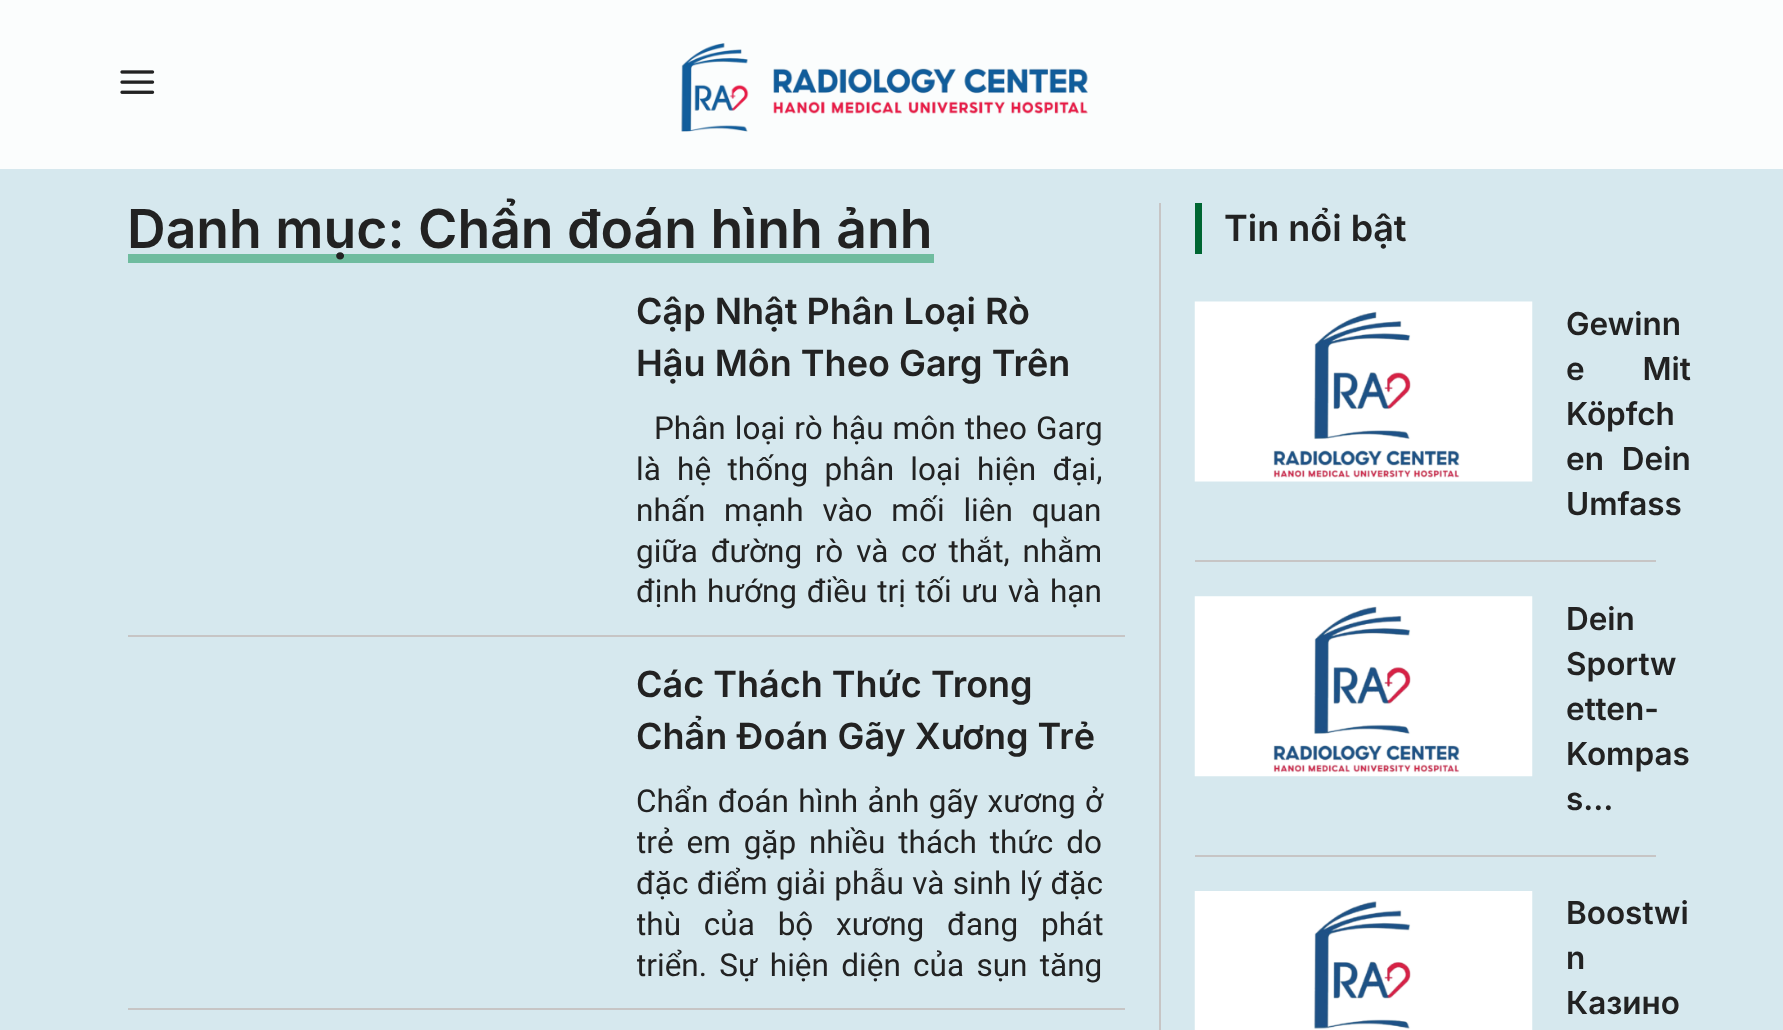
<?xml version="1.0" encoding="UTF-8"?>
<svg xmlns="http://www.w3.org/2000/svg" xmlns:xlink="http://www.w3.org/1999/xlink" width="1783" height="1030">
  <defs>
    <clipPath id="clip1"><rect x="637" y="781" width="466" height="205" /></clipPath>
  </defs>
  <rect width="100%" height="100%" fill="#d6e8ee" />
  <rect width="1783" height="169" fill="#fbfdfd" />
  <image x="120" y="70" width="35" height="24" xlink:href="image1.png" />
  <image x="681" y="43" width="407" height="89" xlink:href="image2.png" />
  <rect x="128" y="254" width="806" height="9" fill="#6fbc9f" />
  <rect x="128" y="635" width="997" height="2" fill="#c7c5c5" />
  <rect x="128" y="1008" width="997" height="2" fill="#c7c5c5" />
  <rect x="1159" y="203" width="2" height="827" fill="#c7c5c5" />
  <rect x="1195" y="203" width="7" height="51" fill="#006632" />
  <rect x="1195" y="560" width="461" height="2" fill="#c7c5c5" />
  <image x="1194" y="301" width="339" height="181" xlink:href="image3.png" />
  <rect x="1195" y="855" width="461" height="2" fill="#c7c5c5" />
  <image x="1194" y="596" width="339" height="181" xlink:href="image4.png" />
  <image x="1194" y="891" width="339" height="139" xlink:href="image5.png" />
  <text x="127" y="248" style="font-family: Inter; font-size: 53.5px; font-weight: 600; fill: #222222">Danh mục: Chẩn đoán hình ảnh</text>
  <text x="636" y="324" style="font-family: Inter; font-size: 36px; font-weight: 600; fill: #222222">Cập Nhật Phân Loại Rò</text>
  <text x="636" y="376" style="font-family: Inter; font-size: 36px; font-weight: 600; fill: #222222">Hậu Môn Theo Garg Trên</text>
  <text x="654" y="439" word-spacing="1.25" style="font-family: Roboto; font-size: 31.5px; fill: #222222">Phân loại rò hậu môn theo Garg</text>
  <text x="636" y="480" word-spacing="8.5" style="font-family: Roboto; font-size: 31.5px; fill: #222222">là hệ thống phân loại hiện đại,</text>
  <text x="636" y="521" word-spacing="11" style="font-family: Roboto; font-size: 31.5px; fill: #222222">nhấn mạnh vào mối liên quan</text>
  <text x="636" y="562" word-spacing="5" style="font-family: Roboto; font-size: 31.5px; fill: #222222">giữa đường rò và cơ thắt, nhằm</text>
  <text x="636" y="602" word-spacing="2" style="font-family: Roboto; font-size: 31.5px; fill: #222222">định hướng điều trị tối ưu và hạn</text>
  <text x="636" y="697" style="font-family: Inter; font-size: 36px; font-weight: 600; fill: #222222">Các Thách Thức Trong</text>
  <text x="636" y="749" style="font-family: Inter; font-size: 36px; font-weight: 600; fill: #222222">Chẩn Đoán Gãy Xương Trẻ</text>
  <text x="636" y="812" word-spacing="1.5" style="font-family: Roboto; font-size: 31.5px; fill: #222222">Chẩn đoán hình ảnh gãy xương ở</text>
  <g clip-path="url(#clip1)">
    <text x="636" y="853" word-spacing="5" style="font-family: Roboto; font-size: 31.5px; fill: #222222">trẻ em gặp nhiều thách thức do</text>
  </g>
  <text x="636" y="894" word-spacing="0.5" style="font-family: Roboto; font-size: 31.5px; fill: #222222">đặc điểm giải phẫu và sinh lý đặc</text>
  <g clip-path="url(#clip1)">
    <text x="636" y="935" word-spacing="15" style="font-family: Roboto; font-size: 31.5px; fill: #222222">thù của bộ xương đang phát</text>
    <text x="636" y="976" word-spacing="4.5" style="font-family: Roboto; font-size: 31.5px; fill: #222222">triển. Sự hiện diện của sụn tăng</text>
  </g>
  <text x="1224" y="241" style="font-family: Inter; font-size: 36px; font-weight: 600; fill: #222222">Tin nổi bật</text>
  <text x="1566" y="335" style="font-family: Inter; font-size: 31.5px; font-weight: 600; fill: #222222">Gewinn</text>
  <text x="1566" y="380" word-spacing="50" style="font-family: Inter; font-size: 31.5px; font-weight: 600; fill: #222222">e Mit</text>
  <text x="1566" y="425" style="font-family: Inter; font-size: 31.5px; font-weight: 600; fill: #222222">Köpfch</text>
  <text x="1566" y="470" word-spacing="10" style="font-family: Inter; font-size: 31.5px; font-weight: 600; fill: #222222">en Dein</text>
  <text x="1566" y="515" style="font-family: Inter; font-size: 31.5px; font-weight: 600; fill: #222222">Umfass</text>
  <text x="1566" y="630" style="font-family: Inter; font-size: 31.5px; font-weight: 600; fill: #222222">Dein</text>
  <text x="1566" y="675" style="font-family: Inter; font-size: 31.5px; font-weight: 600; fill: #222222">Sportw</text>
  <text x="1566" y="720" style="font-family: Inter; font-size: 31.5px; font-weight: 600; fill: #222222">etten-</text>
  <text x="1566" y="765" style="font-family: Inter; font-size: 31.5px; font-weight: 600; fill: #222222">Kompas</text>
  <text x="1566" y="810" style="font-family: Inter; font-size: 31.5px; font-weight: 600; fill: #222222">s…</text>
  <text x="1566" y="924" style="font-family: Inter; font-size: 31.5px; font-weight: 600; fill: #222222">Boostwi</text>
  <text x="1566" y="969" style="font-family: Inter; font-size: 31.5px; font-weight: 600; fill: #222222">n</text>
  <text x="1566" y="1014" style="font-family: Inter; font-size: 31.5px; font-weight: 600; fill: #222222">Казино</text>
</svg>
